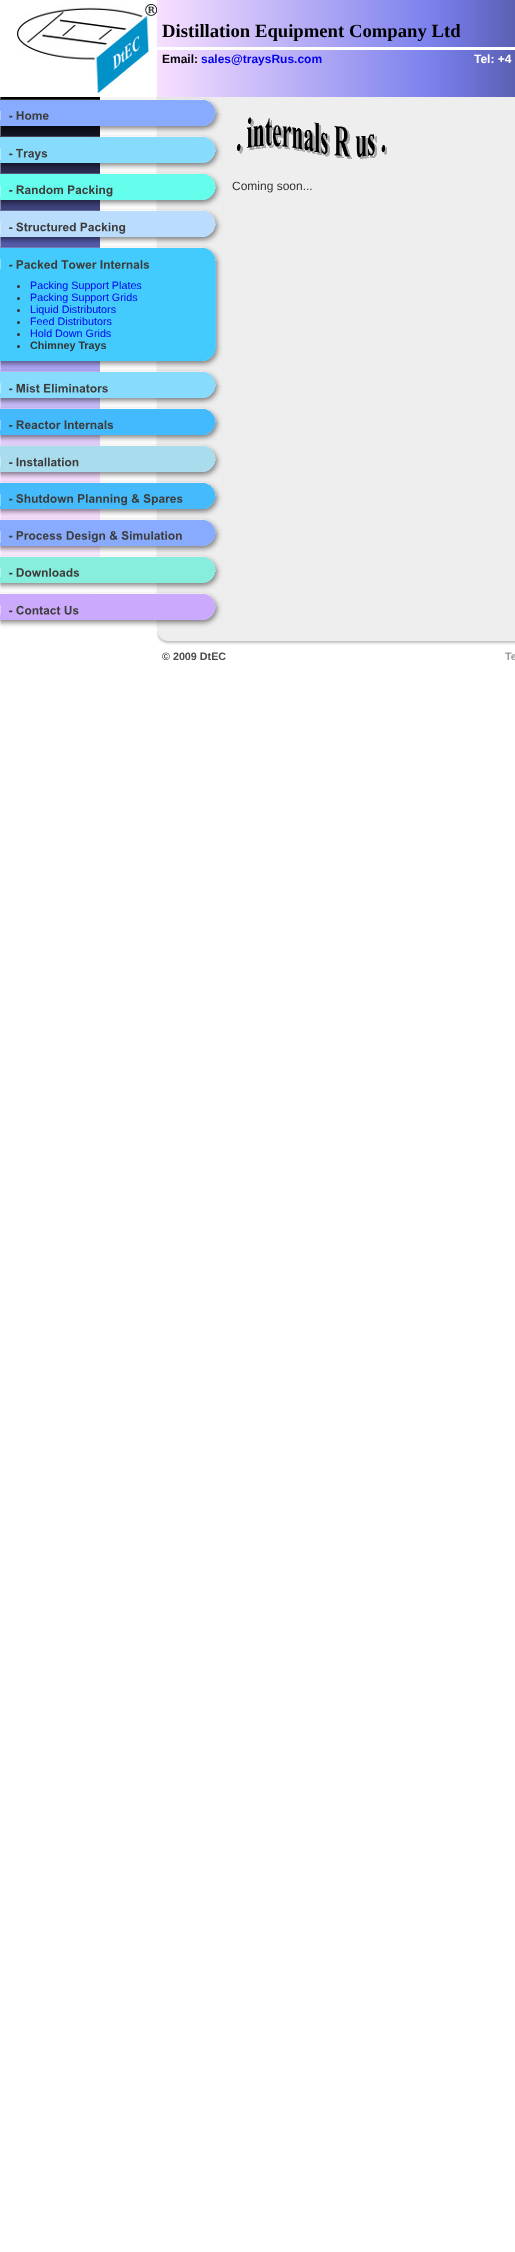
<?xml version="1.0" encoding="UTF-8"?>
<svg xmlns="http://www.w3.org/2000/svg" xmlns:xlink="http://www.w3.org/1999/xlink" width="515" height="2252">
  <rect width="100%" height="100%" fill="#ffffff" />
  <image x="17" y="4" width="140" height="89" xlink:href="image1.png" />
  <image x="157" y="0" width="358" height="97" xlink:href="image2.png" />
  <image x="0" y="97" width="515" height="531" xlink:href="image3.png" />
  <image x="237" y="117" width="150" height="42" xlink:href="image4.png" />
  <image x="0" y="97" width="204" height="3" xlink:href="image5.png" />
  <rect x="204" y="100" width="12" height="13" fill="#88aaff" />
  <image x="215" y="97" width="9" height="16" xlink:href="image6.png" />
  <image x="204" y="97" width="18" height="16" xlink:href="image7.png" />
  <rect y="100" width="204" height="26" fill="#88aaff" />
  <image x="0" y="111" width="49" height="9" xlink:href="image8.png" />
  <rect x="204" y="113" width="20" height="1" fill="#88aaff" />
  <image x="215" y="113" width="9" height="1" xlink:href="image9.png" />
  <image x="0" y="126" width="204" height="8" xlink:href="image10.png" />
  <rect x="204" y="114" width="12" height="13" fill="#88aaff" />
  <image x="215" y="114" width="9" height="20" xlink:href="image11.png" />
  <image x="204" y="115" width="18" height="19" xlink:href="image12.png" />
  <image x="0" y="134" width="204" height="3" xlink:href="image13.png" />
  <rect x="204" y="137" width="12" height="13" fill="#87dcfd" />
  <image x="215" y="134" width="9" height="16" xlink:href="image14.png" />
  <image x="204" y="134" width="18" height="16" xlink:href="image15.png" />
  <rect y="137" width="204" height="26" fill="#87dcfd" />
  <image x="0" y="148" width="48" height="12" xlink:href="image16.png" />
  <rect x="204" y="150" width="20" height="1" fill="#87dcfd" />
  <image x="215" y="150" width="9" height="1" xlink:href="image17.png" />
  <image x="0" y="163" width="204" height="8" xlink:href="image18.png" />
  <rect x="204" y="151" width="12" height="13" fill="#87dcfd" />
  <image x="215" y="151" width="9" height="20" xlink:href="image19.png" />
  <image x="204" y="152" width="18" height="19" xlink:href="image20.png" />
  <image x="0" y="171" width="204" height="3" xlink:href="image21.png" />
  <rect x="204" y="174" width="12" height="13" fill="#65fdec" />
  <image x="215" y="171" width="9" height="16" xlink:href="image22.png" />
  <image x="204" y="171" width="18" height="16" xlink:href="image23.png" />
  <rect y="174" width="204" height="26" fill="#65fdec" />
  <image x="0" y="185" width="114" height="12" xlink:href="image24.png" />
  <rect x="204" y="187" width="20" height="1" fill="#65fdec" />
  <image x="215" y="187" width="9" height="1" xlink:href="image25.png" />
  <image x="0" y="200" width="204" height="8" xlink:href="image26.png" />
  <rect x="204" y="188" width="12" height="13" fill="#65fdec" />
  <image x="215" y="188" width="9" height="20" xlink:href="image27.png" />
  <image x="204" y="189" width="18" height="19" xlink:href="image28.png" />
  <image x="0" y="208" width="204" height="3" xlink:href="image29.png" />
  <rect x="204" y="211" width="12" height="13" fill="#badcfd" />
  <image x="215" y="208" width="9" height="16" xlink:href="image30.png" />
  <image x="204" y="208" width="18" height="16" xlink:href="image31.png" />
  <rect y="211" width="204" height="26" fill="#badcfd" />
  <image x="0" y="222" width="126" height="12" xlink:href="image32.png" />
  <rect x="204" y="224" width="20" height="1" fill="#badcfd" />
  <image x="215" y="224" width="9" height="1" xlink:href="image33.png" />
  <image x="0" y="237" width="204" height="8" xlink:href="image34.png" />
  <rect x="204" y="225" width="12" height="13" fill="#badcfd" />
  <image x="215" y="225" width="9" height="20" xlink:href="image35.png" />
  <image x="204" y="226" width="18" height="19" xlink:href="image36.png" />
  <image x="0" y="245" width="204" height="3" xlink:href="image37.png" />
  <rect x="204" y="248" width="12" height="13" fill="#43cbfd" />
  <image x="215" y="245" width="9" height="16" xlink:href="image38.png" />
  <image x="204" y="245" width="18" height="16" xlink:href="image39.png" />
  <rect x="204" y="261" width="20" height="1" fill="#43cbfd" />
  <image x="215" y="261" width="9" height="1" xlink:href="image40.png" />
  <rect y="248" width="204" height="113" fill="#43cbfd" />
  <image x="0" y="259" width="150" height="10" xlink:href="image41.png" />
  <circle cx="18.5" cy="286.5" r="1.5" fill="#333333" />
  <circle cx="18.5" cy="298.5" r="1.5" fill="#333333" />
  <circle cx="18.5" cy="310.5" r="1.5" fill="#333333" />
  <circle cx="18.5" cy="322.5" r="1.5" fill="#333333" />
  <circle cx="18.5" cy="334.5" r="1.5" fill="#333333" />
  <circle cx="18.5" cy="346.5" r="1.5" fill="#333333" />
  <rect x="204" y="262" width="12" height="100" fill="#43cbfd" />
  <image x="215" y="262" width="9" height="107" xlink:href="image42.png" />
  <image x="204" y="350" width="18" height="19" xlink:href="image43.png" />
  <image x="0" y="361" width="204" height="8" xlink:href="image44.png" />
  <image x="0" y="369" width="204" height="3" xlink:href="image45.png" />
  <rect x="204" y="372" width="12" height="13" fill="#87dcfd" />
  <image x="215" y="369" width="9" height="16" xlink:href="image14.png" />
  <image x="204" y="369" width="18" height="16" xlink:href="image15.png" />
  <rect y="372" width="204" height="26" fill="#87dcfd" />
  <image x="0" y="383" width="109" height="10" xlink:href="image46.png" />
  <rect x="204" y="385" width="20" height="1" fill="#87dcfd" />
  <image x="215" y="385" width="9" height="1" xlink:href="image17.png" />
  <image x="0" y="398" width="204" height="8" xlink:href="image47.png" />
  <rect x="204" y="386" width="12" height="13" fill="#87dcfd" />
  <image x="215" y="386" width="9" height="20" xlink:href="image19.png" />
  <image x="204" y="387" width="18" height="19" xlink:href="image20.png" />
  <image x="0" y="406" width="204" height="3" xlink:href="image48.png" />
  <rect x="204" y="409" width="12" height="13" fill="#43bafd" />
  <image x="215" y="406" width="9" height="16" xlink:href="image49.png" />
  <image x="204" y="406" width="18" height="16" xlink:href="image50.png" />
  <rect y="409" width="204" height="26" fill="#43bafd" />
  <image x="0" y="420" width="113" height="10" xlink:href="image51.png" />
  <rect x="204" y="422" width="20" height="1" fill="#43bafd" />
  <image x="215" y="422" width="9" height="1" xlink:href="image52.png" />
  <image x="0" y="435" width="204" height="8" xlink:href="image53.png" />
  <rect x="204" y="423" width="12" height="13" fill="#43bafd" />
  <image x="215" y="423" width="9" height="20" xlink:href="image54.png" />
  <image x="204" y="424" width="18" height="19" xlink:href="image55.png" />
  <image x="0" y="443" width="204" height="3" xlink:href="image56.png" />
  <rect x="204" y="446" width="12" height="13" fill="#a9dcec" />
  <image x="215" y="443" width="9" height="16" xlink:href="image57.png" />
  <image x="204" y="443" width="18" height="16" xlink:href="image58.png" />
  <rect y="446" width="204" height="26" fill="#a9dcec" />
  <image x="0" y="457" width="80" height="10" xlink:href="image59.png" />
  <rect x="204" y="459" width="20" height="1" fill="#a9dcec" />
  <image x="215" y="459" width="9" height="1" xlink:href="image60.png" />
  <image x="0" y="472" width="204" height="8" xlink:href="image61.png" />
  <rect x="204" y="460" width="12" height="13" fill="#a9dcec" />
  <image x="215" y="460" width="9" height="20" xlink:href="image62.png" />
  <image x="204" y="461" width="18" height="19" xlink:href="image63.png" />
  <image x="0" y="480" width="204" height="3" xlink:href="image64.png" />
  <rect x="204" y="483" width="12" height="13" fill="#45bafd" />
  <image x="215" y="480" width="9" height="16" xlink:href="image65.png" />
  <image x="204" y="480" width="18" height="16" xlink:href="image66.png" />
  <rect y="483" width="204" height="26" fill="#45bafd" />
  <image x="0" y="494" width="184" height="12" xlink:href="image67.png" />
  <rect x="204" y="496" width="20" height="1" fill="#45bafd" />
  <image x="215" y="496" width="9" height="1" xlink:href="image68.png" />
  <image x="0" y="509" width="204" height="8" xlink:href="image69.png" />
  <rect x="204" y="497" width="12" height="13" fill="#45bafd" />
  <image x="215" y="497" width="9" height="20" xlink:href="image70.png" />
  <image x="204" y="498" width="18" height="19" xlink:href="image71.png" />
  <image x="0" y="517" width="204" height="3" xlink:href="image72.png" />
  <rect x="204" y="520" width="12" height="13" fill="#88aaff" />
  <image x="215" y="517" width="9" height="16" xlink:href="image6.png" />
  <image x="204" y="517" width="18" height="16" xlink:href="image7.png" />
  <rect y="520" width="204" height="26" fill="#88aaff" />
  <image x="0" y="531" width="182" height="12" xlink:href="image73.png" />
  <rect x="204" y="533" width="20" height="1" fill="#88aaff" />
  <image x="215" y="533" width="9" height="1" xlink:href="image9.png" />
  <image x="0" y="546" width="204" height="8" xlink:href="image74.png" />
  <rect x="204" y="534" width="12" height="13" fill="#88aaff" />
  <image x="215" y="534" width="9" height="20" xlink:href="image11.png" />
  <image x="204" y="535" width="18" height="19" xlink:href="image12.png" />
  <image x="0" y="554" width="204" height="3" xlink:href="image75.png" />
  <rect x="204" y="557" width="12" height="13" fill="#87eddc" />
  <image x="215" y="554" width="9" height="16" xlink:href="image76.png" />
  <image x="204" y="554" width="18" height="16" xlink:href="image77.png" />
  <rect y="557" width="204" height="26" fill="#87eddc" />
  <image x="0" y="568" width="80" height="9" xlink:href="image78.png" />
  <rect x="204" y="570" width="20" height="1" fill="#87eddc" />
  <image x="215" y="570" width="9" height="1" xlink:href="image79.png" />
  <image x="0" y="583" width="204" height="8" xlink:href="image80.png" />
  <rect x="204" y="571" width="12" height="13" fill="#87eddc" />
  <image x="215" y="571" width="9" height="20" xlink:href="image81.png" />
  <image x="204" y="572" width="18" height="19" xlink:href="image82.png" />
  <image x="0" y="591" width="204" height="3" xlink:href="image83.png" />
  <rect x="204" y="594" width="12" height="13" fill="#cba9fd" />
  <image x="215" y="591" width="9" height="16" xlink:href="image84.png" />
  <image x="204" y="591" width="18" height="16" xlink:href="image85.png" />
  <rect y="594" width="204" height="26" fill="#cba9fd" />
  <image x="0" y="605" width="79" height="10" xlink:href="image86.png" />
  <rect x="204" y="607" width="20" height="1" fill="#cba9fd" />
  <image x="215" y="607" width="9" height="1" xlink:href="image87.png" />
  <image x="0" y="620" width="204" height="8" xlink:href="image80.png" />
  <rect x="204" y="608" width="12" height="13" fill="#cba9fd" />
  <image x="215" y="608" width="9" height="20" xlink:href="image88.png" />
  <image x="204" y="609" width="18" height="19" xlink:href="image89.png" />
  <image x="157" y="628" width="358" height="17" xlink:href="image90.png" />
  <text x="162" y="37" style="font-family: Liberation Serif; font-size: 18.7px; font-weight: bold; fill: #000000">Distillation Equipment Company Ltd</text>
  <text x="162" y="63" style="font-family: Liberation Sans; font-size: 12px; font-weight: bold; fill: #000000">Email:</text>
  <text x="201" y="63" style="font-family: Liberation Sans; font-size: 12px; font-weight: bold; fill: #0000ee">sales@traysRus.com</text>
  <text x="474" y="63" style="font-family: Liberation Sans; font-size: 12px; font-weight: bold; fill: #ffffff">Tel: +4</text>
  <text x="232" y="190" style="font-family: Liberation Sans; font-size: 12px; fill: #333333">Coming soon...</text>
  <text x="30" y="289" style="font-family: Liberation Sans; font-size: 10.75px; fill: #0000ee">Packing Support Plates</text>
  <text x="30" y="301" style="font-family: Liberation Sans; font-size: 10.75px; fill: #0000ee">Packing Support Grids</text>
  <text x="30" y="313" style="font-family: Liberation Sans; font-size: 10.75px; fill: #0000ee">Liquid Distributors</text>
  <text x="30" y="325" style="font-family: Liberation Sans; font-size: 10.75px; fill: #0000ee">Feed Distributors</text>
  <text x="30" y="337" style="font-family: Liberation Sans; font-size: 10.75px; fill: #0000ee">Hold Down Grids</text>
  <text x="30" y="349" style="font-family: Liberation Sans; font-size: 10.75px; font-weight: bold; fill: #333333">Chimney Trays</text>
  <text x="162" y="660" style="font-family: Liberation Sans; font-size: 10.75px; font-weight: bold; fill: #4a4a4a">© 2009 DtEC</text>
  <text x="505" y="660" style="font-family: Liberation Sans; font-size: 10.75px; font-weight: bold; fill: #999999">Te</text>
</svg>
